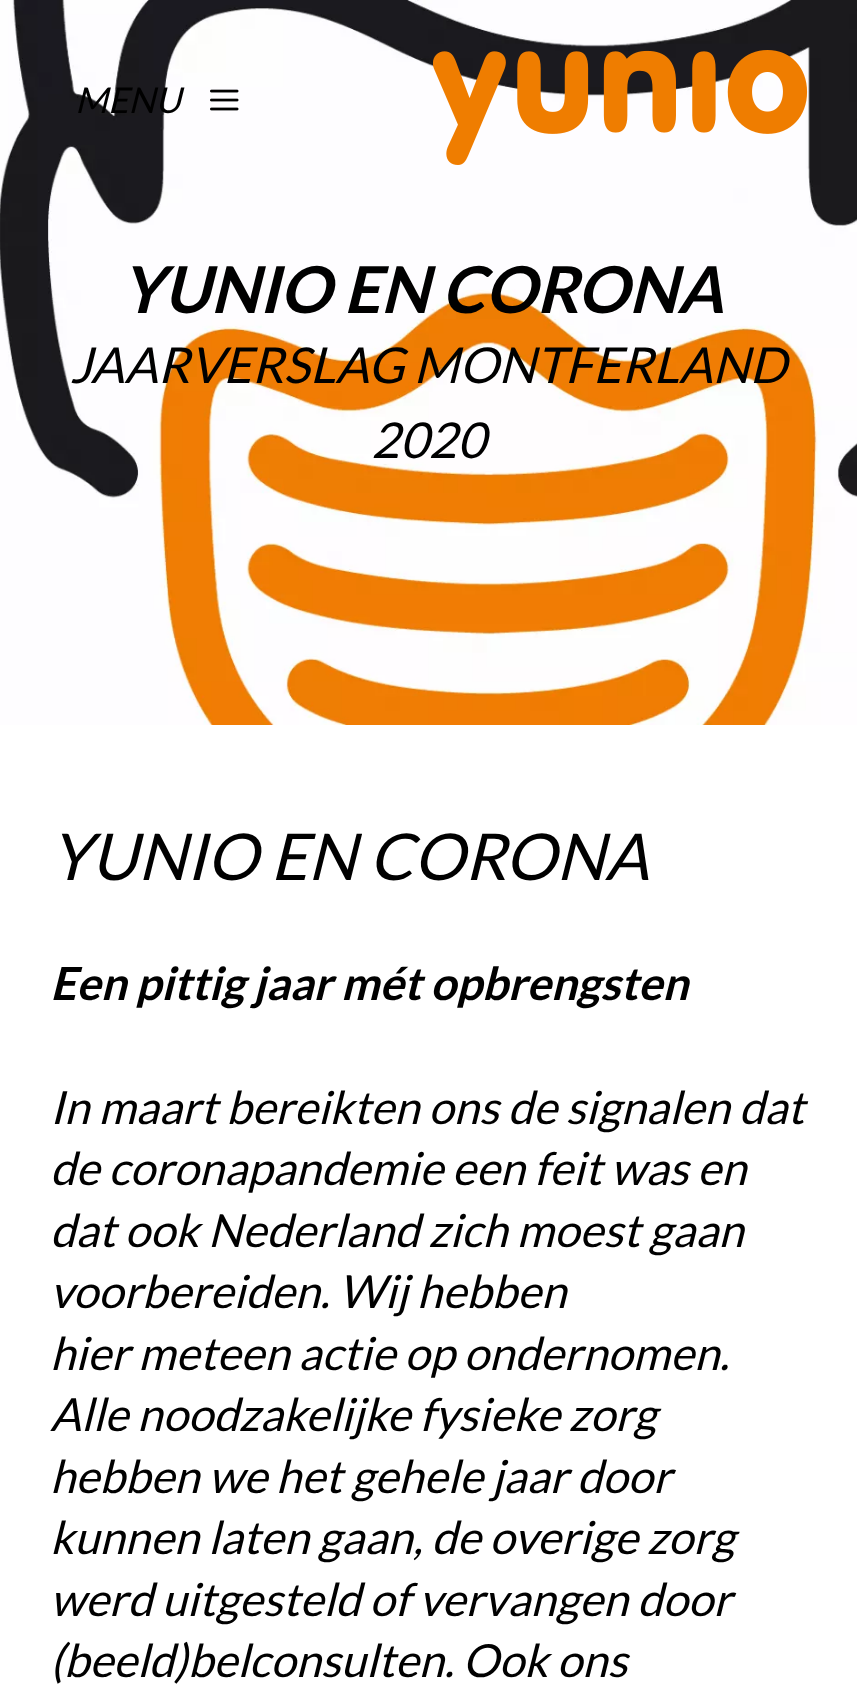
<?xml version="1.0" encoding="UTF-8"?>
<svg xmlns="http://www.w3.org/2000/svg" xmlns:xlink="http://www.w3.org/1999/xlink" width="857" height="1702">
  <rect width="100%" height="100%" fill="#ffffff" />
  <image x="0" y="0" width="857" height="725" xlink:href="image3.png" />
  <image x="210" y="89" width="29" height="22" xlink:href="image1.png" />
  <image x="433" y="50" width="375" height="115" xlink:href="image2.png" />
  <text x="75" y="113" style="font-family: Lato; font-size: 35.5px; font-style: italic; fill: #000000">MENU</text>
  <text x="121" y="313" style="font-family: Lato; font-size: 64.5px; font-weight: bold; font-style: italic; fill: #000000">YUNIO EN CORONA</text>
  <text x="70" y="383" style="font-family: Lato; font-size: 49.4px; font-style: italic; fill: #000000">JAARVERSLAG MONTFERLAND</text>
  <text x="371" y="458" style="font-family: Lato; font-size: 49.4px; font-style: italic; fill: #000000">2020</text>
  <text x="50" y="880" style="font-family: Lato; font-size: 64.5px; font-style: italic; fill: #000000">YUNIO EN CORONA</text>
  <text x="50" y="1000" style="font-family: Lato; font-size: 45.6px; font-weight: bold; font-style: italic; fill: #000000">Een pittig jaar mét opbrengsten</text>
  <text x="50" y="1124" style="font-family: Lato; font-size: 45.6px; font-style: italic; fill: #000000">In maart bereikten ons de signalen dat</text>
  <text x="50" y="1185" style="font-family: Lato; font-size: 45.6px; font-style: italic; fill: #000000">de coronapandemie een feit was en</text>
  <text x="50" y="1247" style="font-family: Lato; font-size: 45.6px; font-style: italic; fill: #000000">dat ook Nederland zich moest gaan</text>
  <text x="50" y="1308" style="font-family: Lato; font-size: 45.6px; font-style: italic; fill: #000000">voorbereiden. Wij hebben</text>
  <text x="50" y="1370" style="font-family: Lato; font-size: 45.6px; font-style: italic; fill: #000000">hier meteen actie op ondernomen.</text>
  <text x="50" y="1431" style="font-family: Lato; font-size: 45.6px; font-style: italic; fill: #000000">Alle noodzakelijke fysieke zorg</text>
  <text x="50" y="1493" style="font-family: Lato; font-size: 45.6px; font-style: italic; fill: #000000">hebben we het gehele jaar door</text>
  <text x="50" y="1554" style="font-family: Lato; font-size: 45.6px; font-style: italic; fill: #000000">kunnen laten gaan, de overige zorg</text>
  <text x="50" y="1616" style="font-family: Lato; font-size: 45.6px; font-style: italic; fill: #000000">werd uitgesteld of vervangen door</text>
  <text x="50" y="1677" style="font-family: Lato; font-size: 45.6px; font-style: italic; fill: #000000">(beeld)belconsulten. Ook ons</text>
</svg>
